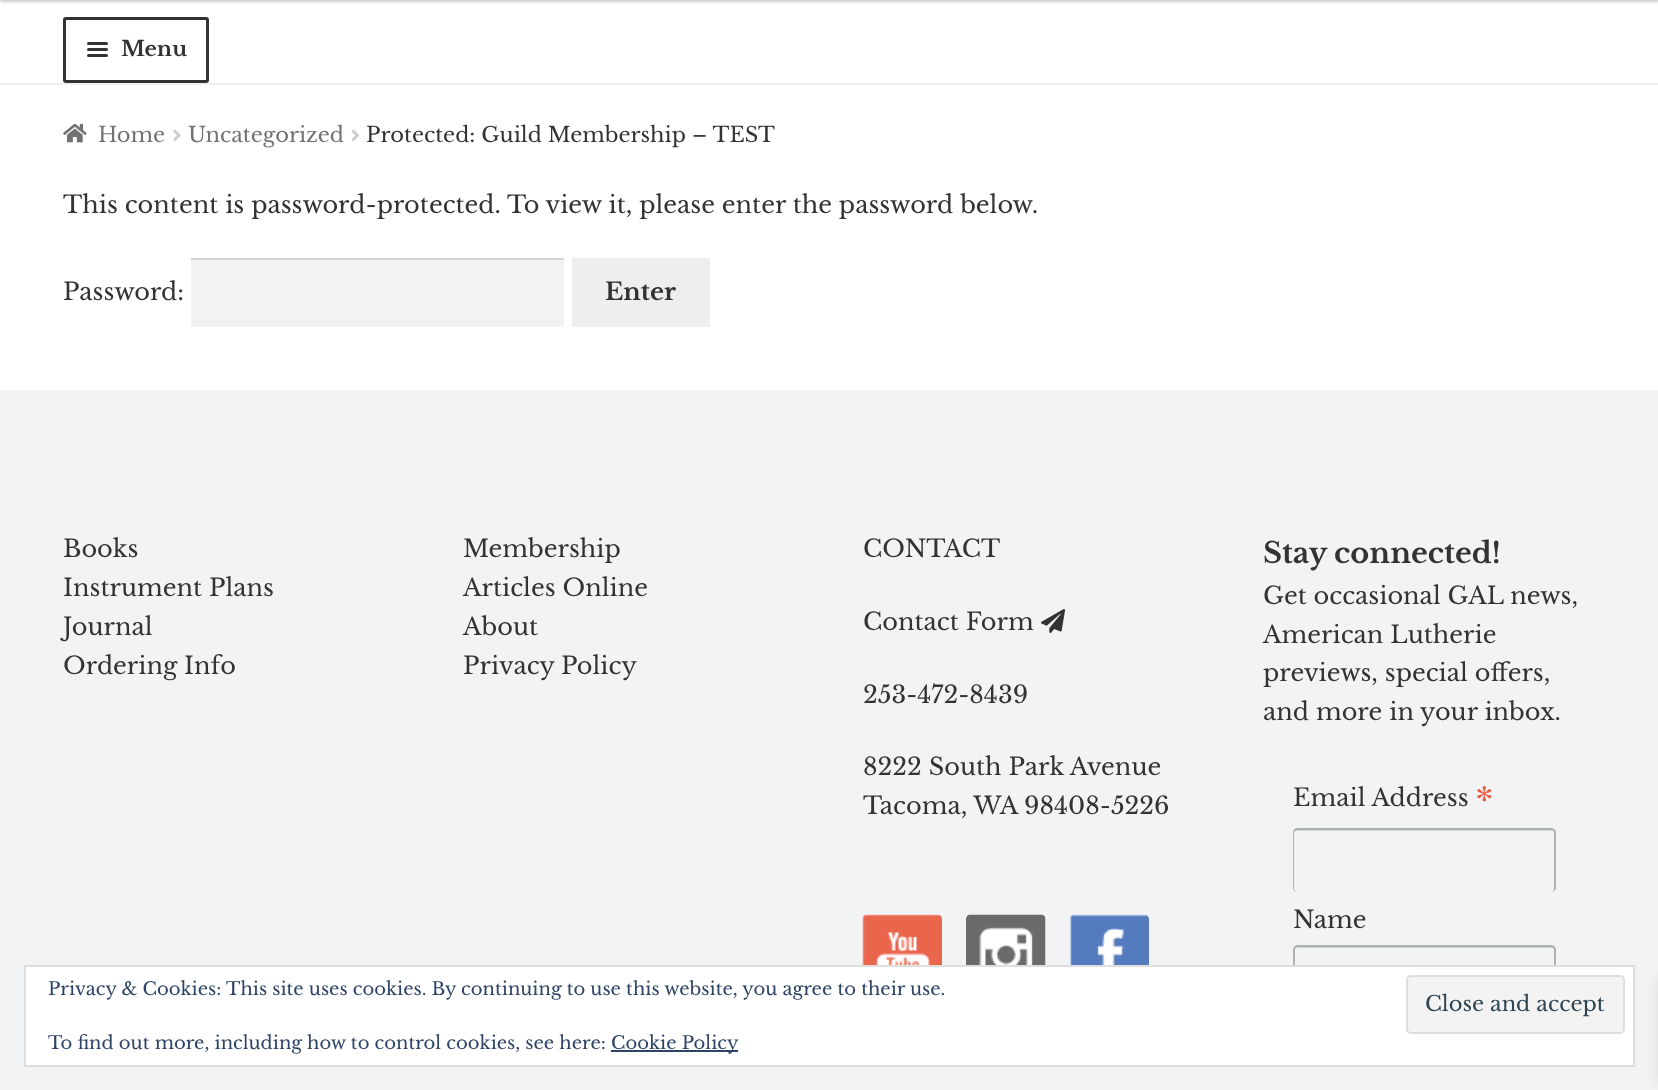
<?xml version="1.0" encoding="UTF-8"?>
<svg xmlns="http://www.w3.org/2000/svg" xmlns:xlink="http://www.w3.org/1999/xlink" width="1658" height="1090">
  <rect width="100%" height="100%" fill="#ffffff" />
  <rect y="-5" width="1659" height="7" fill="#000000" fill-opacity="0.2" filter="blur(1.5px)" />
  <rect y="83" width="1658" height="2" fill="#f0f0f0" />
  <rect x="64.5" y="18.5" width="143" height="63" rx="1.5" fill="none" stroke="#333333" stroke-width="3" />
  <rect x="87" y="42" width="21" height="3" rx="1.5" fill="#333333" />
  <rect x="87" y="48" width="21" height="3" rx="1.5" fill="#333333" />
  <rect x="87" y="54" width="21" height="3" rx="1.5" fill="#333333" />
  <image x="63" y="123" width="24" height="20" xlink:href="image1.png" />
  <image x="173" y="129" width="8" height="12" xlink:href="image2.png" />
  <image x="351" y="129" width="8" height="12" xlink:href="image3.png" />
  <rect x="191" y="260" width="373" height="67" fill="#f2f2f2" />
  <rect x="191" y="258" width="373" height="2" fill="#d4d4d4" />
  <rect x="572" y="258" width="138" height="69" fill="#eeeeee" />
  <rect y="390" width="1658" height="700" fill="#f1f3f4" />
  <image x="1041" y="609" width="24" height="24" xlink:href="image4.png" />
  <image x="862" y="914" width="80" height="51" xlink:href="image5.png" />
  <image x="966" y="914" width="80" height="51" xlink:href="image6.png" />
  <image x="1069" y="914" width="80" height="51" xlink:href="image7.png" />
  <path d="M 1298 831 h 254 l 2 1 v 2 v -2 c 0 -1 -1 -2 -3 -2 h -253 c -2 0 -3 1 -3 2 c 0 -1 2 -1 3 -1 z" fill="#d4d4d4" />
  <path d="M 1298 828 h 253 c 2 0 5 2 5 4 v 56 c 0 2 -3 4 -5 4 h -253 c -3 0 -5 -2 -5 -4 v -56 c 0 -2 2 -4 5 -4 z m 0 2 h 253 c 2 0 3 1 3 2 v 56 c 0 2 -1 4 -3 4 h -253 c -2 0 -4 -2 -4 -4 v -56 c 0 -1 2 -2 4 -2 z" fill="#abb0b2" fill-rule="evenodd" />
  <path d="M 1298 948 h 254 l 2 1 v 2 v -1 c 0 -2 -1 -3 -3 -3 h -253 c -1 0 -2 1 -3 2 z" fill="#d4d4d4" />
  <rect x="1294" y="946" width="261" height="64" rx="4" fill="none" stroke="#abb0b2" stroke-width="2" />
  <rect x="25" y="966" width="1609" height="100" fill="#ffffff" stroke="#dedede" stroke-width="2" />
  <rect x="1407" y="976" width="217" height="57" rx="4" fill="#f3f3f3" stroke="#dedede" stroke-width="2" />
  <rect x="611" y="1050" width="127" height="2" fill="#2e4467" />
  <rect x="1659" y="977" width="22" height="106" fill="#000000" fill-opacity="0.1" filter="blur(7.5px)" />
  <text x="121" y="56" style="font-family: Libre Baskerville; font-size: 21px; font-weight: bold; fill: #333333">Menu</text>
  <text x="98" y="142" style="font-family: Libre Baskerville; font-size: 21px; fill: #727272">Home</text>
  <text x="188" y="142" style="font-family: Libre Baskerville; font-size: 21px; fill: #727272">Uncategorized</text>
  <text x="366" y="142" style="font-family: Libre Baskerville; font-size: 21px; fill: #333333">Protected: Guild Membership – TEST</text>
  <text x="63" y="213" style="font-family: Libre Baskerville; font-size: 24px; fill: #333333">This content is password-protected. To view it, please enter the password below.</text>
  <text x="63" y="300" style="font-family: Libre Baskerville; font-size: 24px; fill: #333333">Password:</text>
  <text x="605" y="300" style="font-family: Libre Baskerville; font-size: 24px; font-weight: bold; fill: #333333">Enter</text>
  <text x="63" y="557" style="font-family: Libre Baskerville; font-size: 24px; fill: #333333">Books</text>
  <text x="63" y="596" style="font-family: Libre Baskerville; font-size: 24px; fill: #333333">Instrument Plans</text>
  <text x="63" y="635" style="font-family: Libre Baskerville; font-size: 24px; fill: #333333">Journal</text>
  <text x="63" y="674" style="font-family: Libre Baskerville; font-size: 24px; fill: #333333">Ordering Info</text>
  <text x="463" y="557" style="font-family: Libre Baskerville; font-size: 24px; fill: #333333">Membership</text>
  <text x="463" y="596" style="font-family: Libre Baskerville; font-size: 24px; fill: #333333">Articles Online</text>
  <text x="463" y="635" style="font-family: Libre Baskerville; font-size: 24px; fill: #333333">About</text>
  <text x="463" y="674" style="font-family: Libre Baskerville; font-size: 24px; fill: #333333">Privacy Policy</text>
  <text x="863" y="557" style="font-family: Libre Baskerville; font-size: 24px; fill: #333333">CONTACT</text>
  <text x="863" y="630" style="font-family: Libre Baskerville; font-size: 24px; fill: #333333">Contact Form</text>
  <text x="863" y="703" style="font-family: Libre Baskerville; font-size: 24px; fill: #333333">253-472-8439</text>
  <text x="863" y="775" style="font-family: Libre Baskerville; font-size: 24px; fill: #333333">8222 South Park Avenue</text>
  <text x="863" y="814" style="font-family: Libre Baskerville; font-size: 24px; fill: #333333">Tacoma, WA 98408-5226</text>
  <text x="1263" y="563" style="font-family: Libre Baskerville; font-size: 28.75px; font-weight: bold; fill: #333333">Stay connected!</text>
  <text x="1263" y="604" style="font-family: Libre Baskerville; font-size: 24px; fill: #333333">Get occasional GAL news,</text>
  <text x="1263" y="643" style="font-family: Libre Baskerville; font-size: 24px; fill: #333333">American Lutherie</text>
  <text x="1263" y="681" style="font-family: Libre Baskerville; font-size: 24px; fill: #333333">previews, special offers,</text>
  <text x="1263" y="720" style="font-family: Libre Baskerville; font-size: 24px; fill: #333333">and more in your inbox.</text>
  <text x="1293" y="806" style="font-family: Libre Baskerville; font-size: 24px; fill: #333333">Email Address</text>
  <text x="1475" y="814" style="font-family: Libre Baskerville; font-size: 36px; fill: #e85c41">*</text>
  <text x="1293" y="928" style="font-family: Libre Baskerville; font-size: 24px; fill: #333333">Name</text>
  <text x="48" y="995" style="font-family: Libre Baskerville; font-size: 18px; fill: #2e4467">Privacy &amp; Cookies: This site uses cookies. By continuing to use this website, you agree to their use.</text>
  <text x="1425" y="1011" style="font-family: Libre Baskerville; font-size: 21px; fill: #2e4453">Close and accept</text>
  <text x="48" y="1049" style="font-family: Libre Baskerville; font-size: 18px; fill: #2e4467">To find out more, including how to control cookies, see here:</text>
  <text x="611" y="1049" style="font-family: Libre Baskerville; font-size: 18px; fill: #2e4467">Cookie Policy</text>
</svg>
